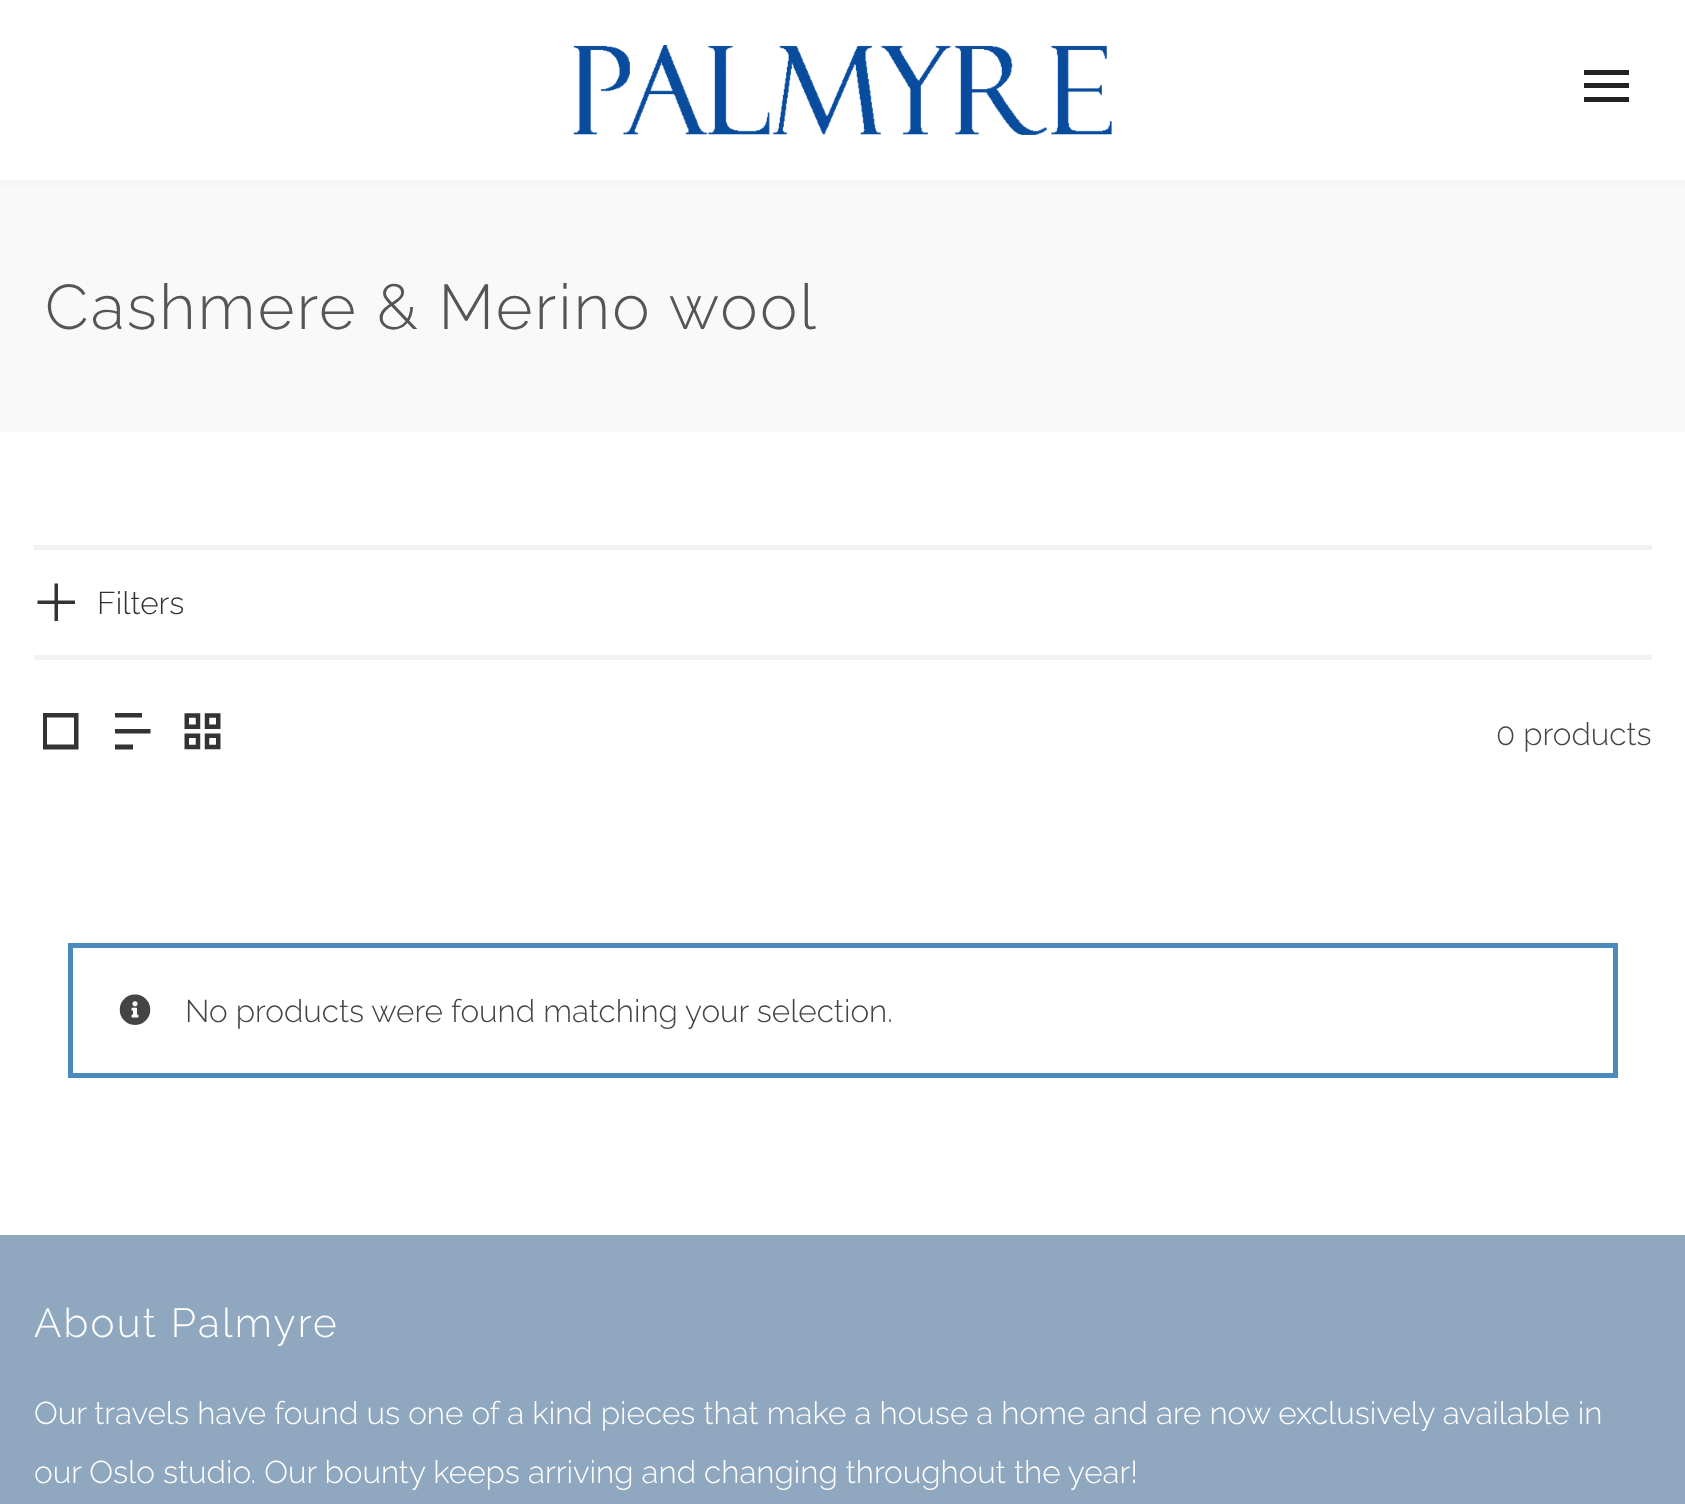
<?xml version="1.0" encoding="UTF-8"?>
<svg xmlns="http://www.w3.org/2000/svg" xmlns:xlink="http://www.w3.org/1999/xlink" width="1685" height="1504">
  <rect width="100%" height="100%" fill="#ffffff" />
  <rect y="180" width="1685" height="5" fill="#f5f5f5" />
  <image x="573" y="45" width="539" height="90" xlink:href="image1.png" />
  <rect x="1584" y="83" width="45" height="5" fill="#222222" />
  <rect x="1584" y="70" width="45" height="5" fill="#222222" />
  <rect x="1584" y="97" width="45" height="5" fill="#222222" />
  <rect y="185" width="1685" height="247" fill="#f9f9f9" />
  <rect x="34" y="545" width="1618" height="5" fill="#f2f2f2" />
  <rect x="34" y="655" width="1618" height="5" fill="#f2f2f2" />
  <path d="M 58 583.5 h -3.5 v 17 h -17 v 3.5 h 17 v 17 h 3.5 v -17 h 17 v -3.5 h -17 z" fill="#333333" />
  <path d="M 74 717.5 v 27 h -27 v -27 z m 4.5 -4.5 h -35.5 v 36.5 h 35.5 z" fill="#333333" />
  <path d="M 115 729 h 35.5 v 4.5 h -35.5 z m 0 -16 h 27 v 4.5 h -27 z m 0 31.5 h 18 v 5 h -18 z" fill="#333333" />
  <image x="184" y="713" width="37" height="37" xlink:href="image2.png" />
  <rect x="70.5" y="945.5" width="1545" height="130" fill="none" stroke="#4c89bf" stroke-width="5" />
  <image x="119" y="994" width="32" height="31" xlink:href="image3.png" />
  <rect y="1235" width="1685" height="269" fill="#8fa7bf" />
  <text x="45" y="329" style="font-family: Raleway; font-size: 63px; font-weight: 300; letter-spacing: 2.25px; fill: #555555">Cashmere &amp; Merino wool</text>
  <text x="97" y="614" style="font-family: Raleway; font-size: 31.5px; font-weight: 300; fill: #333333">Filters</text>
  <text x="1496" y="745" style="font-family: Raleway; font-size: 31.5px; font-weight: 300; fill: #444444">0 products</text>
  <text x="185" y="1022" style="font-family: Raleway; font-size: 31.5px; font-weight: 300; fill: #444444">No products were found matching your selection.</text>
  <text x="34" y="1337" style="font-family: Raleway; font-size: 40.5px; font-weight: 300; letter-spacing: 2.25px; fill: #ffffff">About Palmyre</text>
  <text x="34" y="1424" style="font-family: Raleway; font-size: 31.5px; font-weight: 300; fill: #ffffff">Our travels have found us one of a kind pieces that make a house a home and are now exclusively available in</text>
  <text x="34" y="1483" style="font-family: Raleway; font-size: 31.5px; font-weight: 300; fill: #ffffff">our Oslo studio. Our bounty keeps arriving and changing throughout the year!</text>
</svg>
